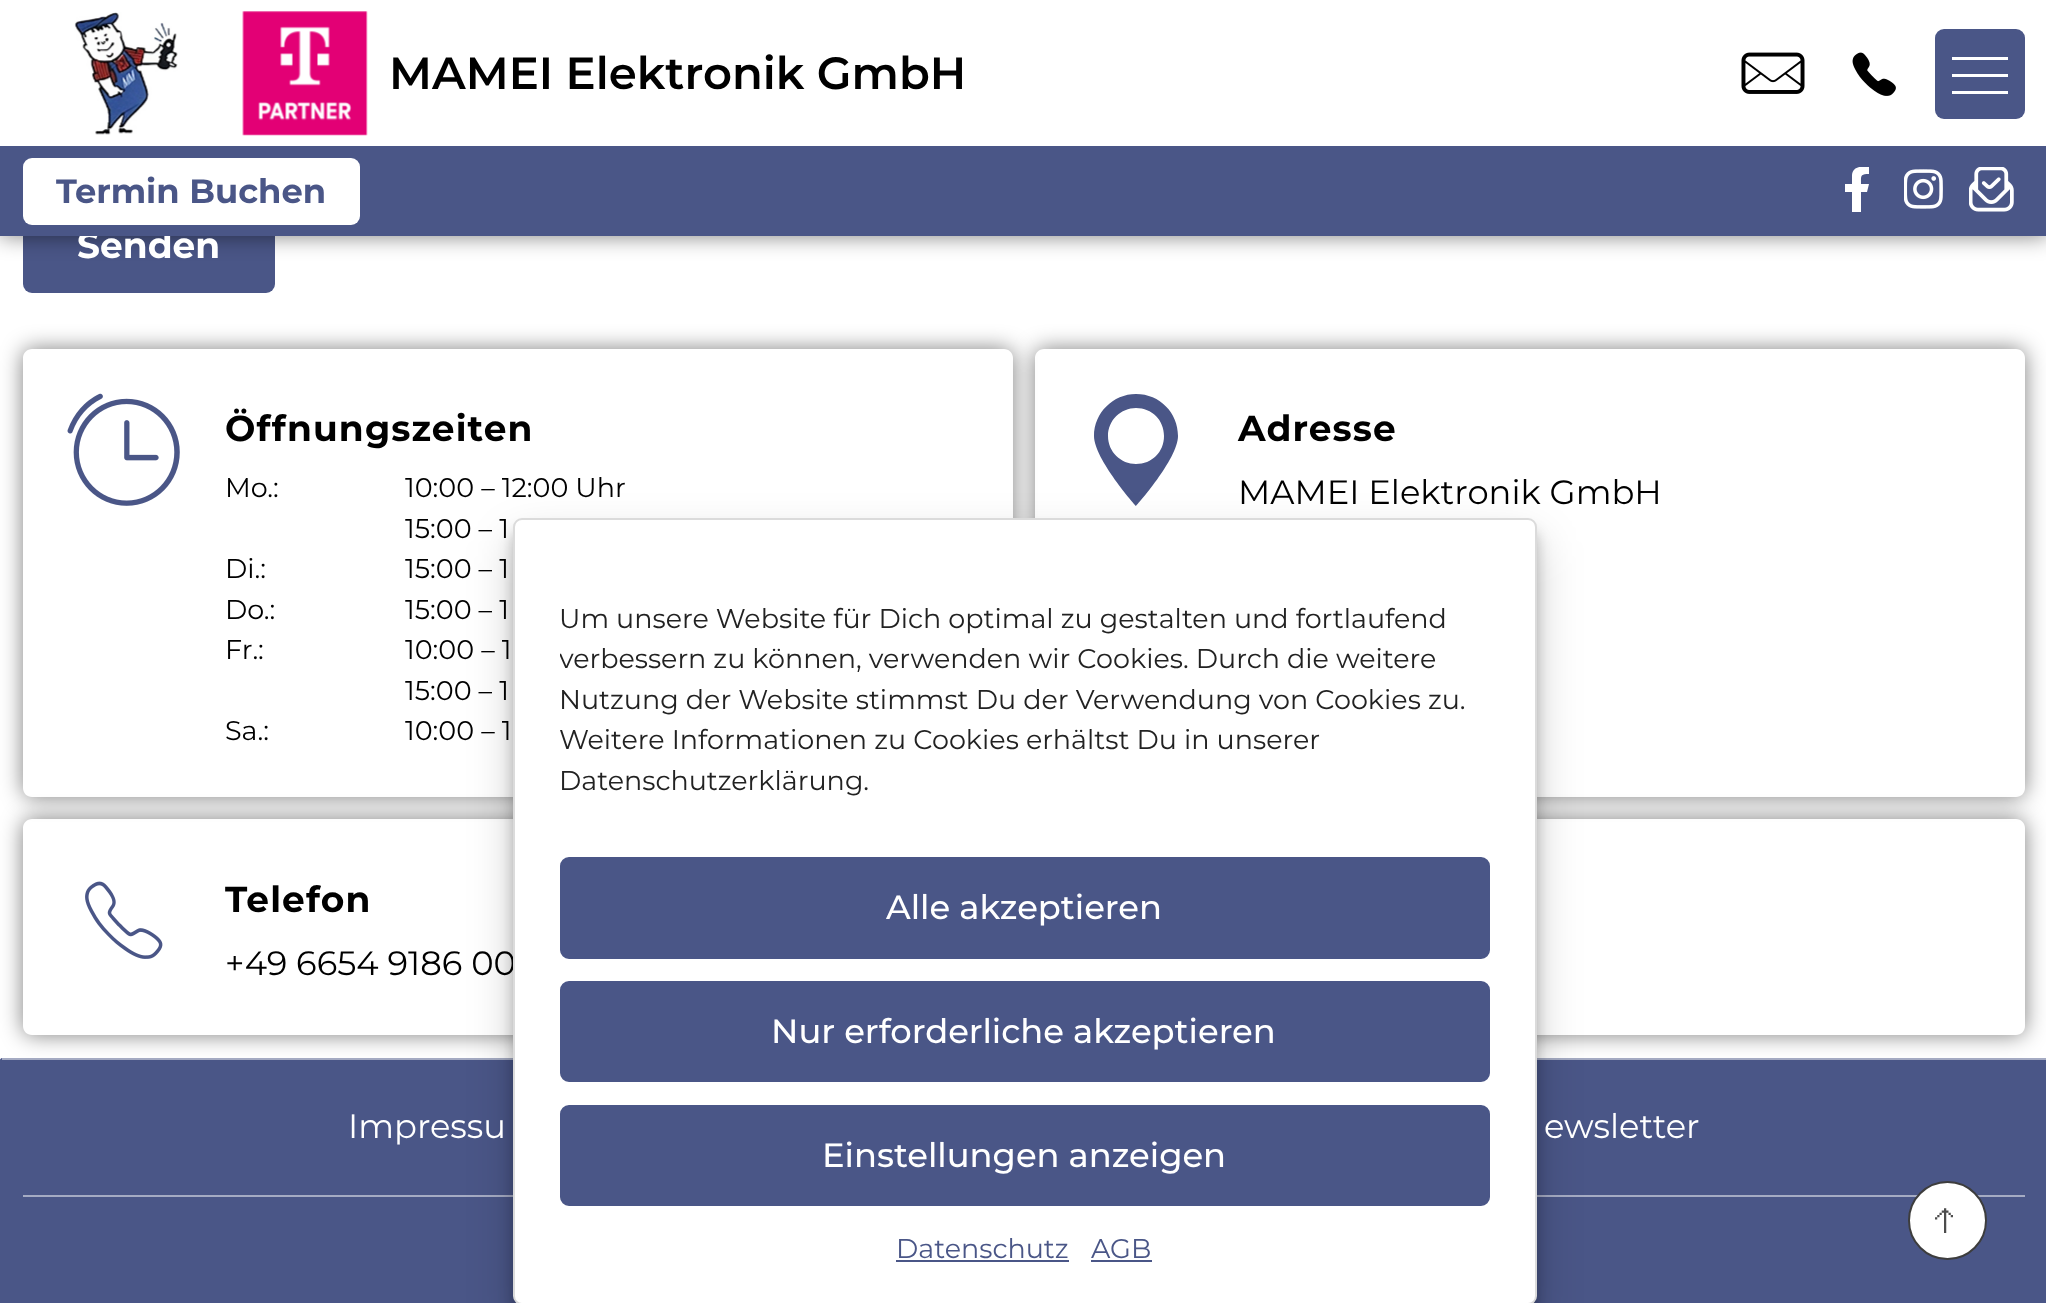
<?xml version="1.0" encoding="UTF-8"?>
<svg xmlns="http://www.w3.org/2000/svg" xmlns:xlink="http://www.w3.org/1999/xlink" width="2046" height="1303">
  <defs>
    <clipPath id="clip1"><path d="M 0 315 h 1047 v 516 h -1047 z m 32 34 h 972 c 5 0 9 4 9 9 v 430 c 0 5 -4 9 -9 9 h -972 c -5 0 -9 -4 -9 -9 v -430 c 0 -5 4 -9 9 -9 z" clip-rule="evenodd" /></clipPath>
    <clipPath id="clip2"><path d="M 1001 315 h 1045 v 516 h -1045 z m 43 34 h 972 c 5 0 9 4 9 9 v 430 c 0 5 -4 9 -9 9 h -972 c -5 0 -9 -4 -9 -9 v -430 c 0 -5 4 -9 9 -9 z" clip-rule="evenodd" /></clipPath>
    <clipPath id="clip3"><path d="M 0 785 h 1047 v 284 h -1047 z m 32 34 h 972 c 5 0 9 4 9 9 v 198 c 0 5 -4 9 -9 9 h -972 c -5 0 -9 -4 -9 -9 v -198 c 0 -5 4 -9 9 -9 z" clip-rule="evenodd" /></clipPath>
    <clipPath id="clip4"><path d="M 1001 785 h 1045 v 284 h -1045 z m 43 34 h 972 c 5 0 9 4 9 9 v 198 c 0 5 -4 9 -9 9 h -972 c -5 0 -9 -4 -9 -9 v -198 c 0 -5 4 -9 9 -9 z" clip-rule="evenodd" /></clipPath>
    <clipPath id="clip5"><rect x="1843" y="167" width="27" height="45" /></clipPath>
    <clipPath id="clip6"><rect x="560" y="599" width="930" height="213" /></clipPath>
  </defs>
  <rect width="100%" height="100%" fill="#ffffff" />
  <rect x="23" y="203" width="252" height="90" rx="9" fill="#4a5687" />
  <rect width="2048" height="236" fill="#000000" fill-opacity="0.5" filter="blur(11px)" />
  <rect width="2046" height="146" fill="#ffffff" />
  <image x="74" y="12" width="104" height="123" xlink:href="image1.png" />
  <image x="242" y="11" width="126" height="125" xlink:href="image2.png" />
  <image x="1741" y="52" width="64" height="42" xlink:href="image3.png" />
  <image x="1852" y="52" width="44" height="44" xlink:href="image4.png" />
  <rect x="1935" y="29" width="90" height="90" rx="9" fill="#4a5687" />
  <path d="M 1952 57 v 3 h 56 v -3 z m 0 17 v 3 h 56 v -3 z m 0 17 v 3 h 56 v -3 z" fill="#ffffff" />
  <g clip-path="url(#clip1)">
    <rect x="23" y="349" width="990" height="448" rx="9" fill="#000000" fill-opacity="0.5" filter="blur(11px)" />
  </g>
  <image x="67" y="393" width="113" height="113" xlink:href="image7.png" />
  <g clip-path="url(#clip2)">
    <rect x="1035" y="349" width="990" height="448" rx="9" fill="#000000" fill-opacity="0.5" filter="blur(11px)" />
  </g>
  <path d="M 1136 394 c 24 0 42 19 42 42 c 0 23 -42 70 -42 70 c 0 0 -42 -47 -42 -70 c 0 -23 19 -42 42 -42 z m 0 70 c 16 0 28 -12 28 -28 c 0 -16 -12 -28 -28 -28 c -15 0 -28 12 -28 28 c 0 16 13 28 28 28 z" fill="#4a5687" />
  <path d="M 2 1058 h 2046 v 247 h -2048 v -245 c 0 -1 1 -2 2 -2 z" fill="#4a5687" />
  <rect x="2" y="1058" width="2044" height="2" fill="#a5abc3" />
  <g clip-path="url(#clip3)">
    <rect x="23" y="819" width="990" height="216" rx="9" fill="#000000" fill-opacity="0.5" filter="blur(11px)" />
  </g>
  <image x="85" y="881" width="78" height="78" xlink:href="image8.png" />
  <g clip-path="url(#clip4)">
    <rect x="1035" y="819" width="990" height="216" rx="9" fill="#000000" fill-opacity="0.5" filter="blur(11px)" />
  </g>
  <rect x="23" y="1195" width="2002" height="2" fill="#a5abc3" />
  <rect x="513" y="531" width="1024" height="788" rx="9" fill="#000000" fill-opacity="0.23" filter="blur(7px)" />
  <rect x="513" y="540" width="1024" height="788" rx="9" fill="#000000" fill-opacity="0.19" filter="blur(22.5px)" />
  <circle cx="1947.5" cy="1220.5" r="38.5" fill="#ffffff" stroke="#3d3d3d" stroke-width="2" />
  <image x="1935" y="1208" width="18" height="25" xlink:href="image9.png" />
  <text x="389" y="89" style="font-family: Montserrat; font-size: 45px; font-weight: 600; fill: #000000">MAMEI Elektronik GmbH</text>
  <text x="77" y="258" style="font-family: Montserrat; font-size: 36px; font-weight: bold; fill: #ffffff">Senden</text>
  <rect y="146" width="2046" height="90" fill="#4a5687" />
  <image x="1969" y="167" width="45" height="45" xlink:href="image6.png" />
  <image x="1904" y="169" width="39" height="40" xlink:href="image5.png" />
  <g clip-path="url(#clip5)">
    <path d="M 1867 192 l 2 -8 h -8 c 0 -8 -1 -10 8 -10 v -7 c -7 -1 -16 -1 -17 8 v 9 h -7 v 8 h 7 v 20 h 9 v -20 z" fill="#ffffff" />
  </g>
  <rect x="23" y="158" width="337" height="67" rx="9" fill="#ffffff" />
  <text x="56" y="203" style="font-family: Montserrat; font-size: 33.75px; font-weight: bold; fill: #4a5687">Termin Buchen</text>
  <text x="225" y="441" style="font-family: Montserrat; font-size: 36px; font-weight: bold; letter-spacing: 1.1px; fill: #000000">Öffnungszeiten</text>
  <text x="225" y="497" style="font-family: Montserrat; font-size: 27px; fill: #000000">Mo.:</text>
  <text x="405" y="497" style="font-family: Montserrat; font-size: 27px; fill: #000000">10:00 – 12:00 Uhr</text>
  <text x="405" y="538" style="font-family: Montserrat; font-size: 27px; fill: #000000">15:00 – 1</text>
  <text x="225" y="578" style="font-family: Montserrat; font-size: 27px; fill: #000000">Di.:</text>
  <text x="405" y="578" style="font-family: Montserrat; font-size: 27px; fill: #000000">15:00 – 1</text>
  <text x="225" y="619" style="font-family: Montserrat; font-size: 27px; fill: #000000">Do.:</text>
  <text x="405" y="619" style="font-family: Montserrat; font-size: 27px; fill: #000000">15:00 – 1</text>
  <text x="225" y="659" style="font-family: Montserrat; font-size: 27px; fill: #000000">Fr.:</text>
  <text x="405" y="659" style="font-family: Montserrat; font-size: 27px; fill: #000000">10:00 – 1</text>
  <text x="405" y="700" style="font-family: Montserrat; font-size: 27px; fill: #000000">15:00 – 1</text>
  <text x="225" y="740" style="font-family: Montserrat; font-size: 27px; fill: #000000">Sa.:</text>
  <text x="405" y="740" style="font-family: Montserrat; font-size: 27px; fill: #000000">10:00 – 1</text>
  <text x="1238" y="441" style="font-family: Montserrat; font-size: 36px; font-weight: bold; letter-spacing: 1.1px; fill: #000000">Adresse</text>
  <text x="1238" y="504" style="font-family: Montserrat; font-size: 33.75px; fill: #000000">MAMEI Elektronik GmbH</text>
  <text x="225" y="912" style="font-family: Montserrat; font-size: 36px; font-weight: bold; letter-spacing: 1.1px; fill: #000000">Telefon</text>
  <text x="225" y="975" style="font-family: Montserrat; font-size: 33.75px; fill: #000000">+49 6654 9186 00</text>
  <text x="348" y="1138" style="font-family: Montserrat; font-size: 33.75px; fill: #ffffff">Impressu</text>
  <text x="1544" y="1138" style="font-family: Montserrat; font-size: 33.75px; fill: #ffffff">ewsletter</text>
  <rect x="514" y="519" width="1022" height="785" rx="8" fill="#ffffff" stroke="#dbdbdb" stroke-width="2" />
  <text x="559" y="628" style="font-family: Montserrat; font-size: 27px; fill: #222222">Um unsere Website für Dich optimal zu gestalten und fortlaufend</text>
  <g clip-path="url(#clip6)">
    <text x="559" y="668" style="font-family: Montserrat; font-size: 27px; fill: #222222">verbessern zu können, verwenden wir Cookies. Durch die weitere</text>
  </g>
  <text x="559" y="709" style="font-family: Montserrat; font-size: 27px; fill: #222222">Nutzung der Website stimmst Du der Verwendung von Cookies zu.</text>
  <text x="559" y="749" style="font-family: Montserrat; font-size: 27px; fill: #222222">Weitere Informationen zu Cookies erhältst Du in unserer</text>
  <text x="559" y="790" style="font-family: Montserrat; font-size: 27px; fill: #222222">Datenschutzerklärung.</text>
  <rect x="561" y="858" width="928" height="100" rx="8" fill="#4a5687" stroke="#4a5687" stroke-width="2" />
  <text x="886" y="919" style="font-family: Montserrat; font-size: 33.75px; font-weight: 500; fill: #ffffff">Alle akzeptieren</text>
  <rect x="561" y="982" width="928" height="99" rx="8" fill="#4a5687" stroke="#4a5687" stroke-width="2" />
  <text x="771" y="1043" style="font-family: Montserrat; font-size: 33.75px; font-weight: 500; fill: #ffffff">Nur erforderliche akzeptieren</text>
  <rect x="561" y="1106" width="928" height="99" rx="8" fill="#4a5687" stroke="#4a5687" stroke-width="2" />
  <text x="822" y="1167" style="font-family: Montserrat; font-size: 33.75px; font-weight: 500; fill: #ffffff">Einstellungen anzeigen</text>
  <text x="896" y="1258" style="font-family: Montserrat; font-size: 27px; fill: #4a5687">Datenschutz</text>
  <rect x="896" y="1260" width="173" height="2" fill="#4a5687" />
  <text x="1091" y="1258" style="font-family: Montserrat; font-size: 27px; fill: #4a5687">AGB</text>
  <rect x="1091" y="1260" width="61" height="2" fill="#4a5687" />
</svg>
